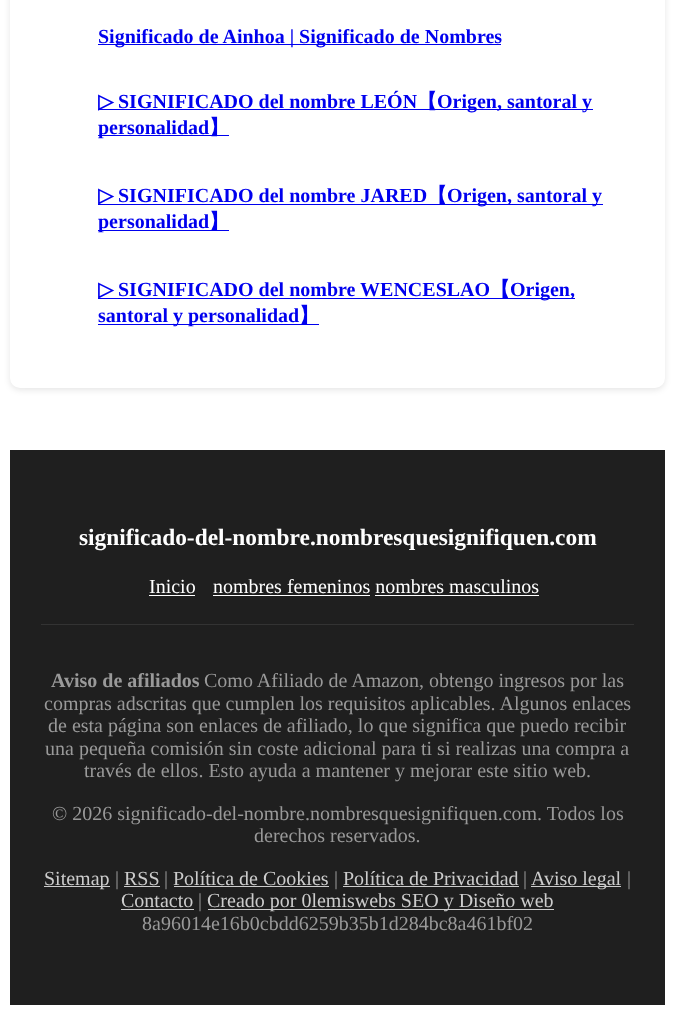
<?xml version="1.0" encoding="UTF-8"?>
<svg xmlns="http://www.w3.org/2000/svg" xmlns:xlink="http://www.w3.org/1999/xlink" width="675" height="1014">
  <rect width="100%" height="100%" fill="#ffffff" />
  <rect x="10" y="-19" width="655" height="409" rx="10" fill="#000000" fill-opacity="0.1" filter="blur(3px)" />
  <rect x="10" y="-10" width="655" height="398" rx="10" fill="#ffffff" />
  <rect x="98" y="44" width="403" height="1" fill="#0000ee" />
  <rect x="98" y="109" width="495" height="1" fill="#0000ee" />
  <rect x="98" y="135" width="131" height="1" fill="#0000ee" />
  <rect x="98" y="204" width="505" height="1" fill="#0000ee" />
  <rect x="98" y="230" width="131" height="1" fill="#0000ee" />
  <rect x="98" y="298" width="477" height="1" fill="#0000ee" />
  <rect x="98" y="324" width="221" height="1" fill="#0000ee" />
  <rect x="10" y="450" width="655" height="555" fill="#1f1f1f" />
  <rect x="149" y="595" width="46" height="1" fill="#ffffff" />
  <rect x="213" y="595" width="157" height="1" fill="#ffffff" />
  <rect x="375" y="595" width="164" height="1" fill="#ffffff" />
  <rect x="41" y="624" width="593" height="1" fill="#333333" />
  <rect x="44" y="886" width="66" height="1" fill="#cccccc" />
  <rect x="124" y="886" width="36" height="1" fill="#cccccc" />
  <rect x="174" y="886" width="155" height="1" fill="#cccccc" />
  <rect x="343" y="886" width="176" height="1" fill="#cccccc" />
  <rect x="531" y="886" width="90" height="1" fill="#cccccc" />
  <rect x="121" y="909" width="73" height="1" fill="#cccccc" />
  <rect x="208" y="909" width="346" height="1" fill="#cccccc" />
  <text x="98" y="43" style="font-family: Liberation Serif; font-size: 20px; font-weight: bold; fill: #0000ee">Significado de Ainhoa | Significado de Nombres</text>
  <text x="98" y="108" style="font-family: DejaVu Sans; font-size: 20px; font-weight: bold; fill: #0000ee">▷</text>
  <text x="118" y="108" style="font-family: Liberation Serif; font-size: 20px; font-weight: bold; fill: #0000ee">SIGNIFICADO del nombre LEÓN</text>
  <text x="417" y="108" style="font-family: WenQuanYi Zen Hei; font-size: 20px; font-weight: bold; fill: #0000ee">【</text>
  <text x="437" y="108" style="font-family: Liberation Serif; font-size: 20px; font-weight: bold; fill: #0000ee">Origen, santoral y</text>
  <text x="98" y="134" style="font-family: Liberation Serif; font-size: 20px; font-weight: bold; fill: #0000ee">personalidad</text>
  <text x="209" y="134" style="font-family: WenQuanYi Zen Hei; font-size: 20px; font-weight: bold; fill: #0000ee">】</text>
  <text x="98" y="202" style="font-family: DejaVu Sans; font-size: 20px; font-weight: bold; fill: #0000ee">▷</text>
  <text x="118" y="202" style="font-family: Liberation Serif; font-size: 20px; font-weight: bold; fill: #0000ee">SIGNIFICADO del nombre JARED</text>
  <text x="427" y="202" style="font-family: WenQuanYi Zen Hei; font-size: 20px; font-weight: bold; fill: #0000ee">【</text>
  <text x="447" y="202" style="font-family: Liberation Serif; font-size: 20px; font-weight: bold; fill: #0000ee">Origen, santoral y</text>
  <text x="98" y="228" style="font-family: Liberation Serif; font-size: 20px; font-weight: bold; fill: #0000ee">personalidad</text>
  <text x="209" y="228" style="font-family: WenQuanYi Zen Hei; font-size: 20px; font-weight: bold; fill: #0000ee">】</text>
  <text x="98" y="296" style="font-family: DejaVu Sans; font-size: 20px; font-weight: bold; fill: #0000ee">▷</text>
  <text x="118" y="296" style="font-family: Liberation Serif; font-size: 20px; font-weight: bold; fill: #0000ee">SIGNIFICADO del nombre WENCESLAO</text>
  <text x="490" y="296" style="font-family: WenQuanYi Zen Hei; font-size: 20px; font-weight: bold; fill: #0000ee">【</text>
  <text x="510" y="296" style="font-family: Liberation Serif; font-size: 20px; font-weight: bold; fill: #0000ee">Origen,</text>
  <text x="98" y="322" style="font-family: Liberation Serif; font-size: 20px; font-weight: bold; fill: #0000ee">santoral y personalidad</text>
  <text x="299" y="322" style="font-family: WenQuanYi Zen Hei; font-size: 20px; font-weight: bold; fill: #0000ee">】</text>
  <text x="79" y="545" style="font-family: Liberation Serif; font-size: 23.4px; font-weight: bold; fill: #ffffff">significado-del-nombre.nombresquesignifiquen.com</text>
  <text x="149" y="593" style="font-family: Liberation Serif; font-size: 20px; fill: #ffffff">Inicio</text>
  <text x="213" y="593" style="font-family: Liberation Serif; font-size: 20px; fill: #ffffff">nombres femeninos nombres masculinos</text>
  <text x="51" y="687" style="font-family: Liberation Serif; font-size: 20px; font-weight: bold; fill: #999999">Aviso de afiliados</text>
  <text x="204" y="687" style="font-family: Liberation Serif; font-size: 20px; fill: #999999">Como Afiliado de Amazon, obtengo ingresos por las</text>
  <text x="44" y="710" style="font-family: Liberation Serif; font-size: 20px; fill: #999999">compras adscritas que cumplen los requisitos aplicables. Algunos enlaces</text>
  <text x="48" y="732" style="font-family: Liberation Serif; font-size: 20px; fill: #999999">de esta página son enlaces de afiliado, lo que significa que puedo recibir</text>
  <text x="45" y="755" style="font-family: Liberation Serif; font-size: 20px; fill: #999999">una pequeña comisión sin coste adicional para ti si realizas una compra a</text>
  <text x="84" y="777" style="font-family: Liberation Serif; font-size: 20px; fill: #999999">través de ellos. Esto ayuda a mantener y mejorar este sitio web.</text>
  <text x="52" y="820" style="font-family: Liberation Serif; font-size: 20px; fill: #999999">© 2026 significado-del-nombre.nombresquesignifiquen.com. Todos los</text>
  <text x="254" y="842" style="font-family: Liberation Serif; font-size: 20px; fill: #999999">derechos reservados.</text>
  <text x="44" y="885" style="font-family: Liberation Serif; font-size: 20px; fill: #cccccc">Sitemap</text>
  <text x="115" y="885" style="font-family: Liberation Serif; font-size: 20px; fill: #999999">|</text>
  <text x="124" y="885" style="font-family: Liberation Serif; font-size: 20px; fill: #cccccc">RSS</text>
  <text x="164" y="885" style="font-family: Liberation Serif; font-size: 20px; fill: #999999">|</text>
  <text x="173" y="885" style="font-family: Liberation Serif; font-size: 20px; fill: #cccccc">Política de Cookies</text>
  <text x="334" y="885" style="font-family: Liberation Serif; font-size: 20px; fill: #999999">|</text>
  <text x="343" y="885" style="font-family: Liberation Serif; font-size: 20px; fill: #cccccc">Política de Privacidad</text>
  <text x="523" y="885" style="font-family: Liberation Serif; font-size: 20px; fill: #999999">|</text>
  <text x="531" y="885" style="font-family: Liberation Serif; font-size: 20px; fill: #cccccc">Aviso legal</text>
  <text x="627" y="885" style="font-family: Liberation Serif; font-size: 20px; fill: #999999">|</text>
  <text x="121" y="907" style="font-family: Liberation Serif; font-size: 20px; fill: #cccccc">Contacto</text>
  <text x="198" y="907" style="font-family: Liberation Serif; font-size: 20px; fill: #999999">|</text>
  <text x="207" y="907" style="font-family: Liberation Serif; font-size: 20px; fill: #cccccc">Creado por 0lemiswebs SEO y Diseño web</text>
  <text x="142" y="930" style="font-family: Liberation Serif; font-size: 20px; fill: #999999">8a96014e16b0cbdd6259b35b1d284bc8a461bf02</text>
</svg>
